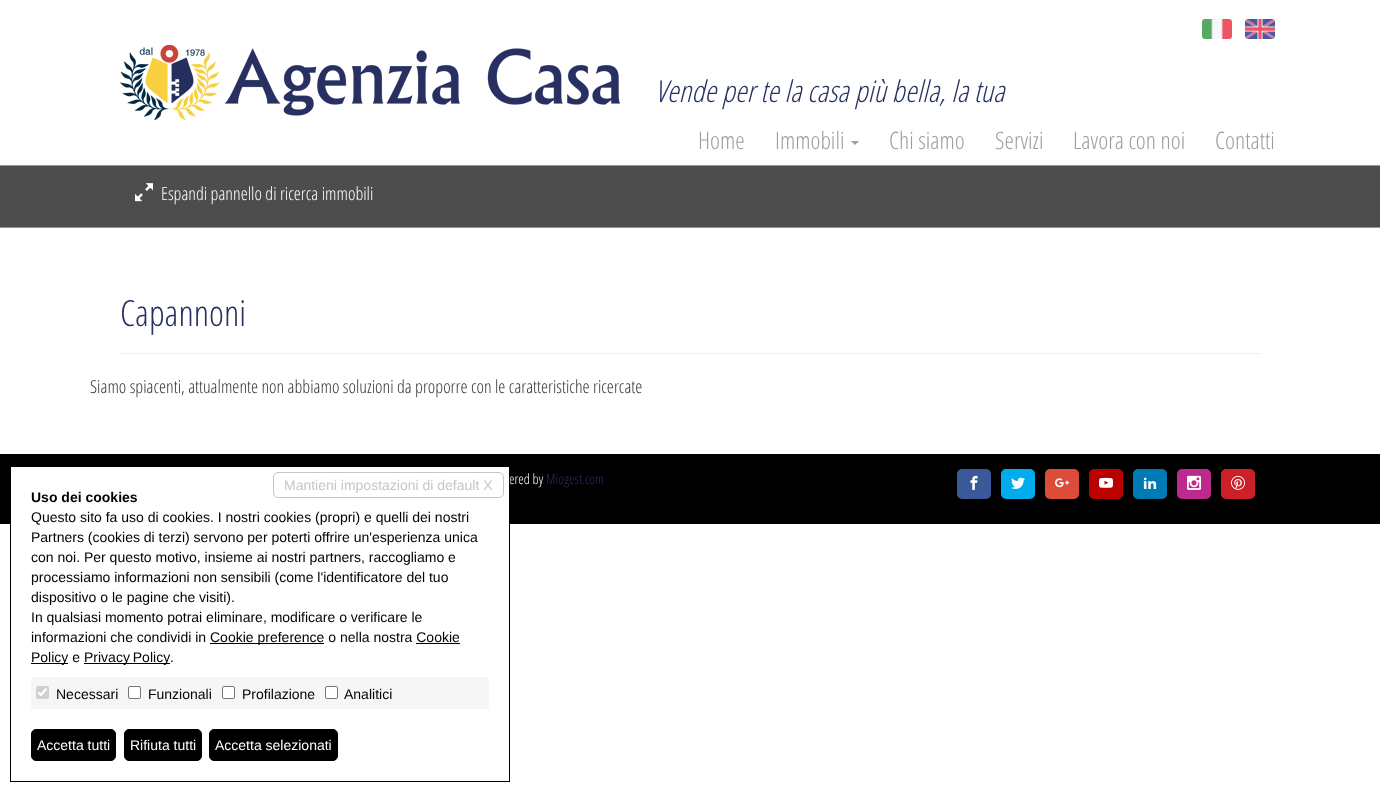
<?xml version="1.0" encoding="UTF-8"?>
<svg xmlns="http://www.w3.org/2000/svg" xmlns:xlink="http://www.w3.org/1999/xlink" width="1380" height="792">
  <rect width="100%" height="100%" fill="#ffffff" />
  <rect y="165" width="1380" height="1" fill="#969696" />
  <image x="1202" y="19" width="30" height="20" xlink:href="image1.png" />
  <image x="1245" y="19" width="30" height="20" xlink:href="image2.png" />
  <image x="120" y="45" width="500" height="75" xlink:href="image3.png" />
  <path d="M 851 141 h 8 l -4 4 z" fill="#9d9d9d" />
  <rect y="166" width="1380" height="61" fill="#4d4d4d" />
  <rect y="227" width="1380" height="1" fill="#969696" />
  <image x="135" y="183" width="18" height="19" xlink:href="image4.png" />
  <rect x="120" y="353" width="1140" height="1" fill="#eeeeee" />
  <rect y="454" width="1380" height="70" fill="#000000" />
  <rect x="11" y="467" width="498" height="57" fill="#ffffff" />
  <rect x="957" y="469" width="34" height="30" rx="5" fill="#3b5998" />
  <image x="970" y="475" width="8" height="15" xlink:href="image5.png" />
  <rect x="1001" y="469" width="34" height="30" rx="5" fill="#00aced" />
  <image x="1011" y="477" width="14" height="12" xlink:href="image6.png" />
  <rect x="1045" y="469" width="34" height="30" rx="5" fill="#dd4b39" />
  <image x="1055" y="478" width="14" height="10" xlink:href="image7.png" />
  <rect x="1089" y="469" width="34" height="30" rx="5" fill="#bb0000" />
  <image x="1099" y="477" width="14" height="11" xlink:href="image8.png" />
  <rect x="1133" y="469" width="34" height="30" rx="5" fill="#007bb6" />
  <image x="1143" y="477" width="14" height="12" xlink:href="image9.png" />
  <rect x="1177" y="469" width="34" height="30" rx="5" fill="#bc2a8d" />
  <image x="1187" y="475" width="14" height="15" xlink:href="image10.png" />
  <rect x="1221" y="469" width="34" height="30" rx="5" fill="#cb2027" />
  <image x="1231" y="475" width="14" height="15" xlink:href="image11.png" />
  <text x="655" y="102" style="font-family: Open Sans Condensed; font-size: 30px; font-weight: 300; font-style: italic; fill: #273060">Vende per te la casa più bella, la tua</text>
  <text x="698" y="149" style="font-family: Open Sans Condensed; font-size: 24px; font-weight: 300; fill: #9d9d9d">Home</text>
  <text x="775" y="149" style="font-family: Open Sans Condensed; font-size: 24px; font-weight: 300; fill: #9d9d9d">Immobili</text>
  <text x="889" y="149" style="font-family: Open Sans Condensed; font-size: 24px; font-weight: 300; fill: #9d9d9d">Chi siamo</text>
  <text x="995" y="149" style="font-family: Open Sans Condensed; font-size: 24px; font-weight: 300; fill: #9d9d9d">Servizi</text>
  <text x="1073" y="149" style="font-family: Open Sans Condensed; font-size: 24px; font-weight: 300; fill: #9d9d9d">Lavora con noi</text>
  <text x="1215" y="149" style="font-family: Open Sans Condensed; font-size: 24px; font-weight: 300; fill: #9d9d9d">Contatti</text>
  <text x="161" y="200" style="font-family: Open Sans Condensed; font-size: 18px; font-weight: 300; fill: #ffffff">Espandi pannello di ricerca immobili</text>
  <text x="120" y="326" style="font-family: Open Sans Condensed; font-size: 36px; font-weight: 300; fill: #273060">Capannoni</text>
  <text x="90" y="393" style="font-family: Open Sans Condensed; font-size: 18px; font-weight: 300; fill: #333333">Siamo spiacenti, attualmente non abbiamo soluzioni da proporre con le caratteristiche ricercate</text>
  <text x="509" y="484" style="font-family: Open Sans Condensed; font-size: 14px; font-weight: 300; fill: #ffffff">ered by</text>
  <rect x="10.5" y="466.5" width="499" height="315" fill="none" stroke="#000000" />
  <rect x="273.5" y="472.5" width="230" height="25" rx="4.5" fill="none" stroke="#c6c6c6" />
  <text x="284" y="490" style="font-family: Liberation Sans; font-size: 14px; fill: #c6c6c6">Mantieni impostazioni di default X</text>
  <rect x="209.5" y="729.5" width="128" height="31" rx="4.5" fill="#000000" stroke="#000000" />
  <text x="215" y="750" style="font-family: Liberation Sans; font-size: 14px; fill: #ffffff">Accetta selezionati</text>
  <rect x="124.5" y="729.5" width="77" height="31" rx="4.5" fill="#000000" stroke="#000000" />
  <text x="130" y="750" style="font-family: Liberation Sans; font-size: 14px; fill: #ffffff">Rifiuta tutti</text>
  <rect x="31.5" y="729.5" width="84" height="31" rx="4.5" fill="#000000" stroke="#000000" />
  <text x="37" y="750" style="font-family: Liberation Sans; font-size: 14px; fill: #ffffff">Accetta tutti</text>
  <rect x="31" y="677" width="458" height="32" fill="#f6f6f6" />
  <text x="344" y="699" style="font-family: Liberation Sans; font-size: 14px; fill: #000000">Analitici</text>
  <rect x="325.5" y="686.5" width="12" height="12" rx="1.5" fill="#ffffff" stroke="#767676" />
  <text x="242" y="699" style="font-family: Liberation Sans; font-size: 14px; fill: #000000">Profilazione</text>
  <rect x="222.5" y="686.5" width="12" height="12" rx="1.5" fill="#ffffff" stroke="#767676" />
  <text x="148" y="699" style="font-family: Liberation Sans; font-size: 14px; fill: #000000">Funzionali</text>
  <rect x="128.5" y="686.5" width="12" height="12" rx="1.5" fill="#ffffff" stroke="#767676" />
  <text x="56" y="699" style="font-family: Liberation Sans; font-size: 14px; fill: #000000">Necessari</text>
  <rect x="36" y="686" width="13" height="13" rx="2" fill="#d0d0d0" />
  <path d="M 38.5 692.5 l 2.5 2.5 l 5.5 -6.5" fill="none" stroke="#ffffff" stroke-width="2.1" />
  <text x="170" y="662" style="font-family: Liberation Sans; font-size: 14px; fill: #000000">.</text>
  <rect x="84" y="663" width="86" height="1" fill="#000000" />
  <text x="84" y="662" word-spacing="-1" style="font-family: Liberation Sans; font-size: 14px; fill: #000000">Privacy Policy</text>
  <rect x="31" y="663" width="37" height="1" fill="#000000" />
  <text x="31" y="662" style="font-family: Liberation Sans; font-size: 14px; fill: #000000">Policy e</text>
  <rect x="416" y="643" width="44" height="1" fill="#000000" />
  <rect x="210" y="643" width="114" height="1" fill="#000000" />
  <text x="210" y="642" style="font-family: Liberation Sans; font-size: 14px; fill: #000000">Cookie preference o nella nostra Cookie</text>
  <text x="31" y="642" style="font-family: Liberation Sans; font-size: 14px; fill: #000000">informazioni che condividi in</text>
  <text x="31" y="622" style="font-family: Liberation Sans; font-size: 14px; fill: #000000">In qualsiasi momento potrai eliminare, modificare o verificare le</text>
  <text x="31" y="602" style="font-family: Liberation Sans; font-size: 14px; fill: #000000">dispositivo o le pagine che visiti).</text>
  <text x="31" y="582" style="font-family: Liberation Sans; font-size: 14px; fill: #000000">processiamo informazioni non sensibili (come l'identificatore del tuo</text>
  <text x="31" y="562" style="font-family: Liberation Sans; font-size: 14px; fill: #000000">con noi. Per questo motivo, insieme ai nostri partners, raccogliamo e</text>
  <text x="31" y="542" style="font-family: Liberation Sans; font-size: 14px; fill: #000000">Partners (cookies di terzi) servono per poterti offrire un'esperienza unica</text>
  <text x="31" y="522" style="font-family: Liberation Sans; font-size: 14px; fill: #000000">Questo sito fa uso di cookies. I nostri cookies (propri) e quelli dei nostri</text>
  <text x="31" y="502" style="font-family: Liberation Sans; font-size: 14px; font-weight: bold; fill: #000000">Uso dei cookies</text>
  <text x="546" y="484" style="font-family: Open Sans Condensed; font-size: 14px; font-weight: 300; fill: #273060">Miogest.com</text>
</svg>
